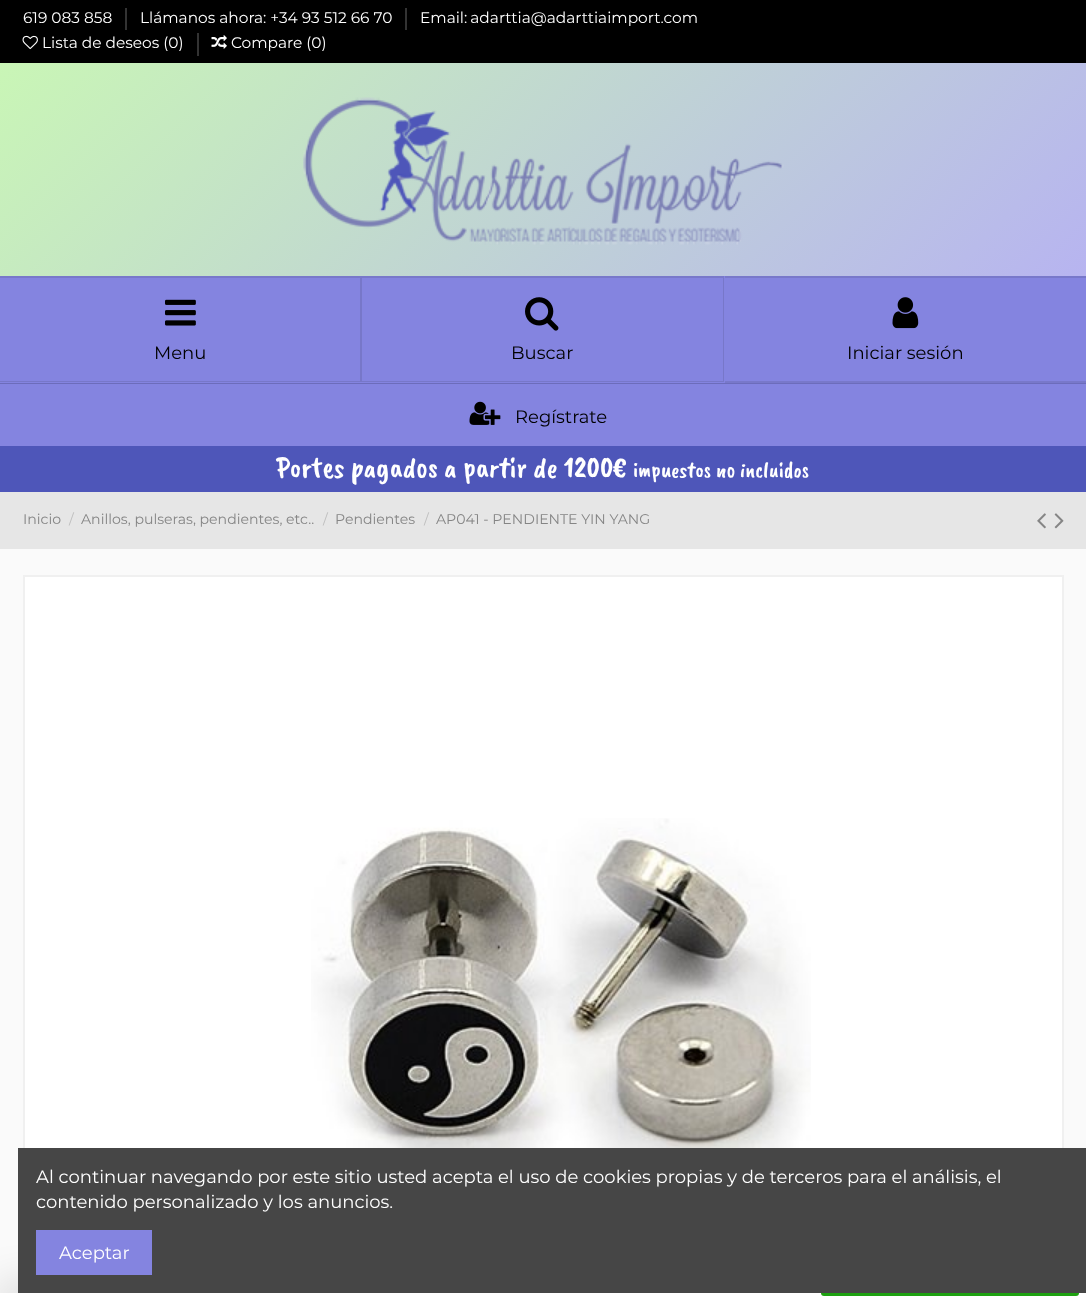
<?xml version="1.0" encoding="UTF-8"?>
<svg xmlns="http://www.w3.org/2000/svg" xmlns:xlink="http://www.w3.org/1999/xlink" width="1086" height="1311">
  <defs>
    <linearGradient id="g1" gradientUnits="userSpaceOnUse" x1="149" y1="-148" x2="938" y2="640"><stop offset="0" stop-color="#caf9b3" /><stop offset="1" stop-color="#b4a9fa" /></linearGradient>
  </defs>
  <rect width="100%" height="100%" fill="#fafafa" />
  <rect y="63" width="1086" height="213" fill="url(#g1)" />
  <rect width="1086" height="63" fill="#000000" />
  <rect x="125" y="8" width="2" height="22" fill="#333333" />
  <rect x="405" y="8" width="2" height="22" fill="#333333" />
  <image x="22" y="35" width="16" height="15" xlink:href="image1.png" />
  <rect x="197" y="33" width="2" height="23" fill="#333333" />
  <image x="211" y="35" width="16" height="14" xlink:href="image2.png" />
  <rect y="383" width="1086" height="1" fill="#6c6cbb" />
  <image x="303" y="97" width="481" height="148" xlink:href="image3.png" />
  <rect y="276" width="1086" height="107" fill="#8484e0" />
  <path d="M 0 276 h 362 l -2 2 h -360 z" fill="#7878ca" />
  <path d="M 362 276 v 106 l -2 -1 v -103 z" fill="#151515" fill-opacity="0.11" />
  <path d="M 362 382 h -362 v -1 h 360 z" fill="#151515" fill-opacity="0.11" />
  <image x="165" y="299" width="31" height="27" xlink:href="image4.png" />
  <path d="M 362 276 h 362 l -1 2 h -361 z" fill="#7878ca" />
  <path d="M 724 276 v 106 l -1 -1 v -103 z" fill="#151515" fill-opacity="0.11" />
  <path d="M 724 382 h -362 v -1 h 361 z" fill="#151515" fill-opacity="0.11" />
  <image x="525" y="297" width="34" height="34" xlink:href="image5.png" />
  <rect x="725" y="276" width="361" height="2" fill="#7878ca" />
  <rect x="725" y="381" width="361" height="2" fill="#7878ca" />
  <image x="892" y="297" width="27" height="32" xlink:href="image6.png" />
  <rect y="384" width="1086" height="62" fill="#8484e0" />
  <image x="469" y="401" width="32" height="24" xlink:href="image7.png" />
  <rect y="446" width="1086" height="46" fill="#4e56b9" />
  <rect y="492" width="1086" height="57" fill="#e6e6e6" />
  <image x="1037" y="513" width="9" height="16" xlink:href="image8.png" />
  <image x="1054" y="513" width="10" height="16" xlink:href="image9.png" />
  <rect x="25" y="577" width="1037" height="571" fill="#ffffff" />
  <rect x="24" y="576" width="1039" height="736" fill="none" stroke="#f0f0f0" stroke-width="2" />
  <image x="311" y="818" width="500" height="330" xlink:href="image10.png" />
  <rect y="1293" width="1086" height="18" fill="#000000" fill-opacity="0.3" filter="blur(22.5px)" />
  <rect y="1293" width="1086" height="18" fill="#ffffff" />
  <rect x="821" y="1266" width="258" height="30" rx="3" fill="#1da110" />
  <rect x="18" y="1148" width="1068" height="145" fill="#464646" />
  <rect x="36" y="1230" width="116" height="45" fill="#8484e0" />
  <text x="23" y="23" style="font-family: Montserrat; font-size: 15.4px; fill: #ffffff">619 083 858</text>
  <text x="140" y="23" style="font-family: Montserrat; font-size: 15.4px; fill: #ffffff">Llámanos ahora: +34 93 512 66 70</text>
  <text x="420" y="23" word-spacing="-1" style="font-family: Montserrat; font-size: 15.4px; fill: #ffffff">Email: adarttia@adarttiaimport.com</text>
  <text x="42" y="48" style="font-family: Montserrat; font-size: 15.4px; fill: #ffffff">Lista de deseos (0)</text>
  <text x="231" y="48" style="font-family: Montserrat; font-size: 15.4px; fill: #ffffff">Compare (0)</text>
  <text x="154" y="359" style="font-family: Montserrat; font-size: 18px; fill: #000000">Menu</text>
  <text x="511" y="359" style="font-family: Montserrat; font-size: 18px; fill: #000000">Buscar</text>
  <text x="847" y="359" style="font-family: Montserrat; font-size: 18px; fill: #000000">Iniciar sesión</text>
  <text x="515" y="423" style="font-family: Montserrat; font-size: 18px; fill: #000000">Regístrate</text>
  <text x="276" y="477" style="font-family: Caveat Brush; font-size: 30px; fill: #ffffff">Portes pagados a partir de 1200€</text>
  <text x="633" y="477" style="font-family: Caveat Brush; font-size: 22.5px; fill: #ffffff">impuestos no incluidos</text>
  <text x="23" y="524" style="font-family: Montserrat; font-size: 14.1px; fill: #858585">Inicio</text>
  <text x="69" y="524" style="font-family: Montserrat; font-size: 14.1px; fill: #bfbfbf">/</text>
  <text x="81" y="524" style="font-family: Montserrat; font-size: 14.1px; fill: #858585">Anillos, pulseras, pendientes, etc..</text>
  <text x="323" y="524" style="font-family: Montserrat; font-size: 14.1px; fill: #bfbfbf">/</text>
  <text x="335" y="524" style="font-family: Montserrat; font-size: 14.1px; fill: #858585">Pendientes</text>
  <text x="424" y="524" style="font-family: Montserrat; font-size: 14.1px; fill: #bfbfbf">/</text>
  <text x="436" y="524" style="font-family: Montserrat; font-size: 14.1px; fill: #858585">AP041 - PENDIENTE YIN YANG</text>
  <text x="36" y="1183" style="font-family: Montserrat; font-size: 18px; fill: #ffffff">Al continuar navegando por este sitio usted acepta el uso de cookies propias y de terceros para el análisis, el</text>
  <text x="36" y="1208" style="font-family: Montserrat; font-size: 18px; fill: #ffffff">contenido personalizado y los anuncios.</text>
  <text x="59" y="1259" style="font-family: Montserrat; font-size: 18px; fill: #ffffff">Aceptar</text>
</svg>
